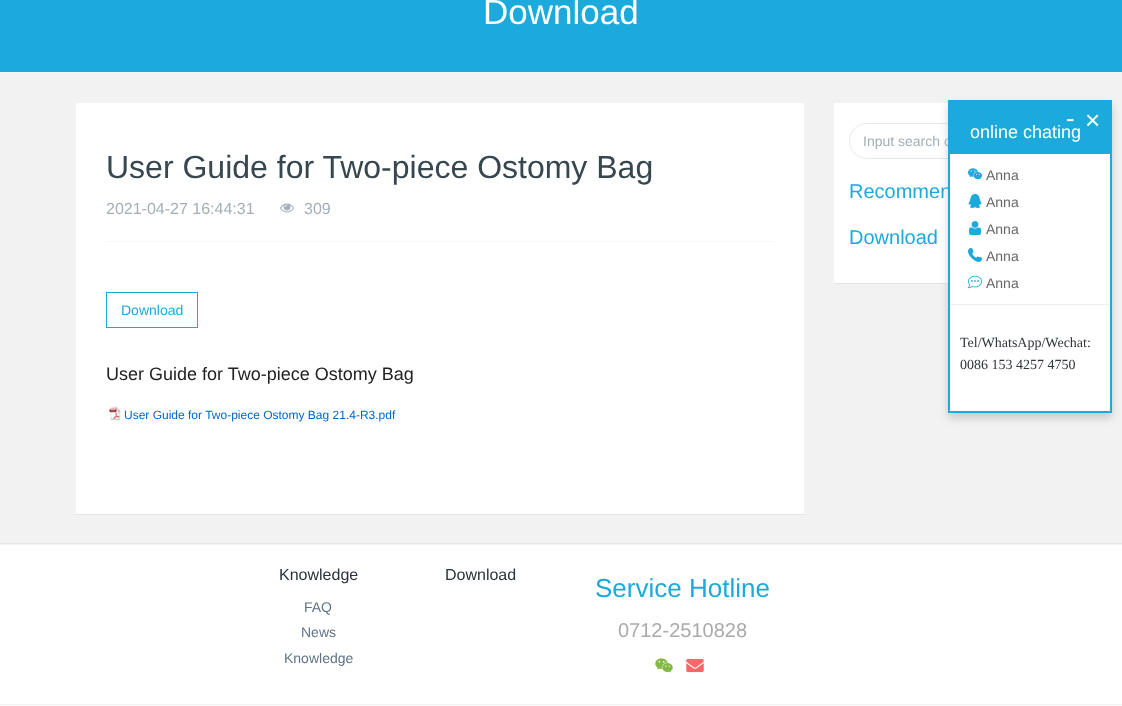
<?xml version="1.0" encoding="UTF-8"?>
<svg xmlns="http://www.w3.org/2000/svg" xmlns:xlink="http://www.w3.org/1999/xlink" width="1122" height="706">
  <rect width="100%" height="100%" fill="#ffffff" />
  <rect width="1122" height="72" fill="#1baadb" />
  <rect y="73" width="1122" height="470" fill="#f2f2f2" />
  <rect y="72" width="1122" height="1" fill="#f7f7f7" />
  <rect x="76" y="104" width="728" height="411" fill="#000000" fill-opacity="0.05" filter="blur(0.5px)" />
  <rect x="76" y="103" width="728" height="411" fill="#ffffff" />
  <rect x="106" y="241" width="668" height="1" fill="#f7f7f7" />
  <image x="280" y="203" width="14" height="10" xlink:href="image1.png" />
  <rect x="106.5" y="292.5" width="91" height="35" fill="none" stroke="#1baadb" />
  <image x="109" y="406" width="12" height="15" xlink:href="image2.png" />
  <rect x="834" y="104" width="212" height="180" rx="1" fill="#000000" fill-opacity="0.05" filter="blur(0.5px)" />
  <rect x="834" y="103" width="212" height="180" rx="1" fill="#ffffff" />
  <rect x="849.5" y="123.5" width="181" height="35" rx="17.5" fill="none" stroke="#e4eaec" />
  <rect x="948" y="105" width="164" height="313" fill="#040000" fill-opacity="0.17" filter="blur(4.5px)" />
  <rect x="950" y="154" width="160" height="257" fill="#ffffff" />
  <rect y="543" width="1122" height="1" fill="#e6e6e6" />
  <rect y="544" width="1122" height="1" fill="#f0f2f5" />
  <image x="655" y="658" width="18" height="15" xlink:href="image8.png" />
  <image x="686" y="658" width="18" height="15" xlink:href="image9.png" />
  <rect y="704" width="1122" height="1" fill="#f0f2f5" />
  <text x="483" y="24" style="font-family: Liberation Sans; font-size: 35px; fill: #ffffff">Download</text>
  <text x="106" y="178" style="font-family: Liberation Sans; font-size: 32px; fill: #37474f">User Guide for Two-piece Ostomy Bag</text>
  <text x="106" y="214" style="font-family: Liberation Sans; font-size: 16px; fill: #a3afb7">2021-04-27 16:44:31</text>
  <text x="304" y="214" style="font-family: Liberation Sans; font-size: 16px; fill: #a3afb7">309</text>
  <text x="121" y="315" style="font-family: Liberation Sans; font-size: 14px; fill: #1baadb">Download</text>
  <text x="106" y="380" style="font-family: Liberation Sans; font-size: 18px; fill: #222222">User Guide for Two-piece Ostomy Bag</text>
  <text x="124" y="419" style="font-family: Liberation Sans; font-size: 12px; fill: #0066cc">User Guide for Two-piece Ostomy Bag 21.4-R3.pdf</text>
  <text x="863" y="146" style="font-family: Liberation Sans; font-size: 14px; fill: #a3afb7">Input search c</text>
  <text x="849" y="198" style="font-family: Liberation Sans; font-size: 20px; fill: #1baadb">Recommen</text>
  <text x="849" y="244" style="font-family: Liberation Sans; font-size: 20px; fill: #1baadb">Download</text>
  <rect x="949" y="101" width="162" height="311" fill="none" stroke="#1baadb" stroke-width="2" />
  <rect x="950" y="102" width="160" height="52" fill="#1baadb" />
  <text x="1066" y="127" style="font-family: Liberation Sans; font-size: 26px; fill: #ffffff">-</text>
  <text x="1085" y="129" style="font-family: Liberation Sans; font-size: 26px; fill: #ffffff">×</text>
  <text x="970" y="138" style="font-family: Liberation Sans; font-size: 18px; fill: #ffffff">online chating</text>
  <image x="968" y="168" width="14" height="12" xlink:href="image3.png" />
  <text x="986" y="180" style="font-family: Liberation Sans; font-size: 14px; fill: #666666">Anna</text>
  <image x="968" y="194" width="14" height="14" xlink:href="image4.png" />
  <text x="986" y="207" style="font-family: Liberation Sans; font-size: 14px; fill: #666666">Anna</text>
  <image x="969" y="221" width="12" height="14" xlink:href="image5.png" />
  <text x="986" y="234" style="font-family: Liberation Sans; font-size: 14px; fill: #666666">Anna</text>
  <image x="968" y="248" width="14" height="14" xlink:href="image6.png" />
  <text x="986" y="261" style="font-family: Liberation Sans; font-size: 14px; fill: #666666">Anna</text>
  <image x="968" y="275" width="14" height="14" xlink:href="image7.png" />
  <text x="986" y="288" style="font-family: Liberation Sans; font-size: 14px; fill: #666666">Anna</text>
  <rect x="950" y="304" width="160" height="1" fill="#eeeeee" />
  <text x="960" y="347" style="font-family: Liberation Serif; font-size: 14px; fill: #31353b">Tel/WhatsApp/Wechat:</text>
  <text x="960" y="369" style="font-family: Liberation Serif; font-size: 14px; fill: #31353b">0086 153 4257 4750</text>
  <text x="279" y="580" style="font-family: Liberation Sans; font-size: 16px; fill: #2a333c">Knowledge</text>
  <text x="304" y="612" style="font-family: Liberation Sans; font-size: 14px; fill: #5e7387">FAQ</text>
  <text x="301" y="637" style="font-family: Liberation Sans; font-size: 14px; fill: #5e7387">News</text>
  <text x="284" y="663" style="font-family: Liberation Sans; font-size: 14px; fill: #5e7387">Knowledge</text>
  <text x="445" y="580" style="font-family: Liberation Sans; font-size: 16px; fill: #2a333c">Download</text>
  <text x="595" y="597" style="font-family: Liberation Sans; font-size: 26px; fill: #1baadb">Service Hotline</text>
  <text x="618" y="637" style="font-family: Liberation Sans; font-size: 20px; fill: #aaaaaa">0712-2510828</text>
</svg>
